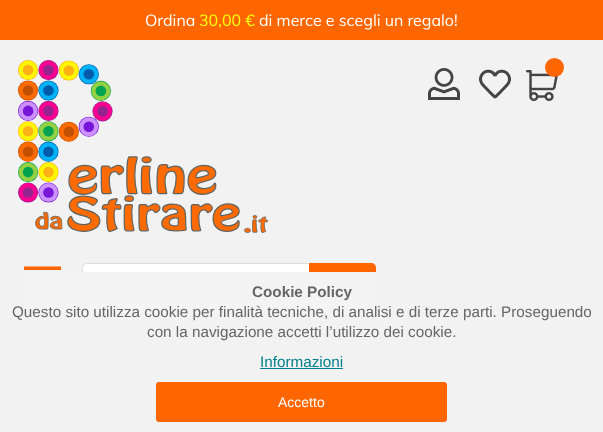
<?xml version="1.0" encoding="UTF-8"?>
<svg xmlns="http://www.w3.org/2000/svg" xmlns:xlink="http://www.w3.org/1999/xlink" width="603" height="432">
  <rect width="100%" height="100%" fill="#f2f2f2" />
  <rect width="603" height="40" fill="#ff6600" />
  <image x="18" y="60" width="250" height="173" xlink:href="image1.png" />
  <image x="428" y="68" width="32" height="32" xlink:href="image2.png" />
  <image x="479" y="69" width="32" height="30" xlink:href="image3.png" />
  <image x="526" y="70" width="32" height="31" xlink:href="image4.png" />
  <circle cx="554.5" cy="67.5" r="9.5" fill="#ff6600" />
  <path d="M 24 266.5 v 3.5 h 37 v -3.5 z m 0 16 h 37 v -3.5 h -37 z m 0 12 h 37 v -3.5 h -37 z" fill="#ff6600" />
  <rect x="82.5" y="263.5" width="261" height="49" rx="4.5" fill="#ffffff" stroke="#dedede" />
  <path d="M 309 263 h 62 c 3 0 5 2 5 5 v 40 c 0 3 -2 5 -5 5 h -62 z" fill="#ff6600" />
  <rect x="24" y="272" width="352" height="41" fill="#f4f4f4" />
  <rect x="260" y="368" width="83" height="1" fill="#02808e" />
  <rect x="156" y="382" width="291" height="40" rx="3" fill="#ff6600" />
  <text x="145" y="26" style="font-family: Muli; font-size: 16px; fill: #ffffff">Ordina</text>
  <text x="199" y="26" style="font-family: Muli; font-size: 16px; fill: #f5ff0f">30,00 €</text>
  <text x="259" y="26" style="font-family: Muli; font-size: 16px; fill: #ffffff">di merce e scegli un regalo!</text>
  <text x="252" y="297" style="font-family: Liberation Sans; font-size: 15.25px; font-weight: bold; fill: #666666">Cookie Policy</text>
  <text x="12" y="317" style="font-family: Liberation Sans; font-size: 15.25px; fill: #666666">Questo sito utilizza cookie per finalità tecniche, di analisi e di terze parti. Proseguendo</text>
  <text x="147" y="337" style="font-family: Liberation Sans; font-size: 15.25px; fill: #666666">con la navigazione accetti l’utilizzo dei cookie.</text>
  <text x="260" y="367" style="font-family: Liberation Sans; font-size: 15.25px; fill: #02808e">Informazioni</text>
  <text x="278" y="407" style="font-family: Liberation Sans; font-size: 14px; fill: #ffffff">Accetto</text>
</svg>
